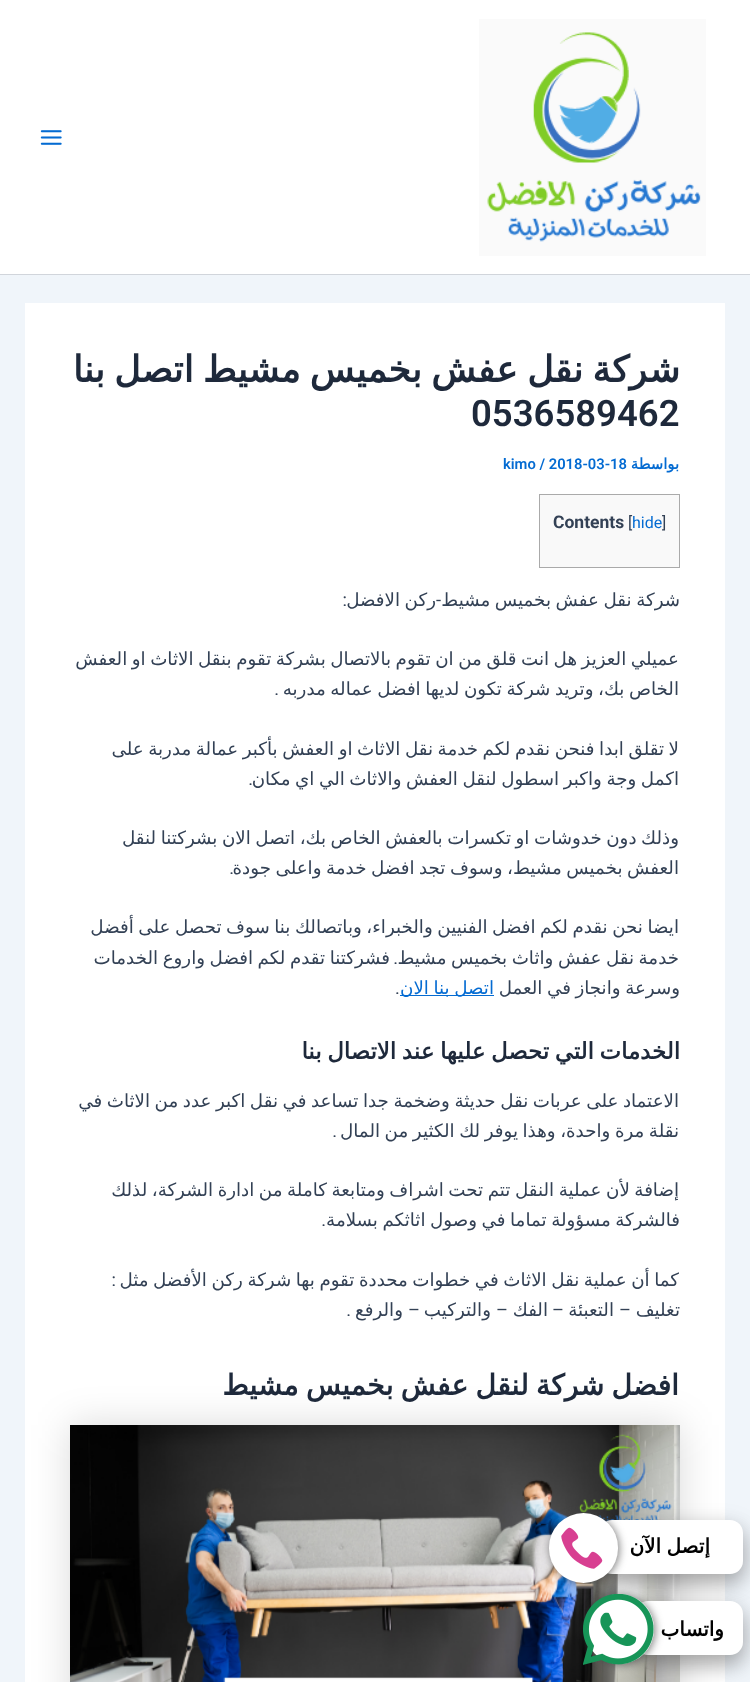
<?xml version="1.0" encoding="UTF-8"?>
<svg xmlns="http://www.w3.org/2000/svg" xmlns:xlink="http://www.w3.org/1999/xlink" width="750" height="1682">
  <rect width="100%" height="100%" fill="#f0f5fa" />
  <rect width="750" height="274" fill="#ffffff" />
  <rect y="274" width="750" height="1" fill="#d1d5db" />
  <image x="479" y="19" width="227" height="237" xlink:href="image1.png" />
  <image x="40" y="130" width="22" height="15" xlink:href="image2.png" />
  <rect x="25" y="303" width="700" height="1379" fill="#ffffff" />
  <rect x="539.5" y="494.5" width="140" height="73" fill="#f9f9f9" stroke="#aaaaaa" />
  <rect x="400" y="995" width="94" height="1" fill="#046bd2" />
  <rect x="70" y="1425" width="610" height="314" fill="#000000" fill-opacity="0.15" filter="blur(19px)" />
  <image x="70" y="1425" width="610" height="257" xlink:href="image3.png" />
  <rect x="599" y="1528" width="144" height="53" rx="13" fill="#000000" fill-opacity="0.19" filter="blur(12.5px)" />
  <rect x="599" y="1530" width="144" height="54" rx="13" fill="#000000" fill-opacity="0.2" filter="blur(10px)" />
  <rect x="599" y="1520" width="144" height="54" rx="13" fill="#ffffff" />
  <rect x="550" y="1514" width="69" height="70" rx="34.5" fill="#444444" fill-opacity="0.71" filter="blur(4px)" />
  <rect x="549" y="1513" width="69" height="70" rx="34.5" fill="#ffffff" />
  <image x="561" y="1527" width="42" height="42" xlink:href="image4.png" />
  <rect x="635" y="1609" width="108" height="54" rx="13" fill="#000000" fill-opacity="0.19" filter="blur(12.5px)" />
  <rect x="635" y="1611" width="108" height="54" rx="13" fill="#000000" fill-opacity="0.2" filter="blur(10px)" />
  <rect x="635" y="1601" width="108" height="54" rx="13" fill="#ffffff" />
  <rect x="586" y="1595" width="69" height="70" rx="34.5" fill="#444444" fill-opacity="0.71" filter="blur(4px)" />
  <rect x="585" y="1594" width="69" height="70" rx="34.5" fill="#ffffff" />
  <image x="583" y="1594" width="71" height="71" xlink:href="image5.png" />
  <text x="680" y="382" word-spacing="-2.5" style="font-family: DejaVu Sans; font-size: 36.5px; font-weight: bold; direction: rtl; fill: #1e293b">شركة نقل عفش بخميس مشيط اتصل بنا</text>
  <text x="471" y="426" style="font-family: Roboto; font-size: 36.5px; font-weight: 600; fill: #1e293b">0536589462</text>
  <text x="679" y="469" style="font-family: DejaVu Sans; font-size: 14.75px; font-weight: bold; direction: rtl; fill: #046bd2">بواسطة</text>
  <text x="503" y="469" style="font-family: Roboto; font-size: 14.75px; font-weight: 600; fill: #046bd2">kimo / 2018-03-18</text>
  <text x="662" y="528" style="font-family: Roboto; font-size: 16px; fill: #334155">]</text>
  <text x="632" y="528" style="font-family: Roboto; font-size: 16px; fill: #046bd2">hide</text>
  <text x="628" y="528" style="font-family: Roboto; font-size: 16px; fill: #334155">[</text>
  <text x="553" y="528" style="font-family: Roboto; font-size: 17.5px; font-weight: bold; fill: #334155">Contents</text>
  <text x="680" y="606" word-spacing="-1.25" style="font-family: DejaVu Sans; font-size: 18.25px; direction: rtl; fill: #334155">شركة نقل عفش بخميس مشيط</text>
  <text x="436" y="606" word-spacing="-1.25" style="font-family: DejaVu Sans; font-size: 18.25px; direction: rtl; fill: #334155">ركن الافضل</text>
  <text x="441" y="606" style="font-family: Roboto; font-size: 18.25px; direction: rtl; fill: #334155">-</text>
  <text x="347" y="606" style="font-family: Roboto; font-size: 18.25px; direction: rtl; fill: #334155">:</text>
  <text x="679" y="665" word-spacing="-1.25" style="font-family: DejaVu Sans; font-size: 18.25px; direction: rtl; fill: #334155">عميلي العزيز هل انت قلق من ان تقوم بالاتصال بشركة تقوم بنقل الاثاث او العفش</text>
  <text x="679" y="695" word-spacing="-1.25" style="font-family: DejaVu Sans; font-size: 18.25px; direction: rtl; fill: #334155">الخاص بك، وتريد شركة تكون لديها افضل عماله مدربه</text>
  <text x="279" y="695" style="font-family: Roboto; font-size: 18.25px; direction: rtl; fill: #334155">.</text>
  <text x="679" y="755" word-spacing="-1.25" style="font-family: DejaVu Sans; font-size: 18.25px; direction: rtl; fill: #334155">لا تقلق ابدا فنحن نقدم لكم خدمة نقل الاثاث او العفش بأكبر عمالة مدربة على</text>
  <text x="679" y="785" word-spacing="-1.25" style="font-family: DejaVu Sans; font-size: 18.25px; direction: rtl; fill: #334155">اكمل وجة واكبر اسطول لنقل العفش والاثاث الي اي مكان</text>
  <text x="253" y="785" style="font-family: Roboto; font-size: 18.25px; direction: rtl; fill: #334155">.</text>
  <text x="679" y="844" word-spacing="-1.25" style="font-family: DejaVu Sans; font-size: 18.25px; direction: rtl; fill: #334155">وذلك دون خدوشات او تكسرات بالعفش الخاص بك، اتصل الان بشركتنا لنقل</text>
  <text x="679" y="874" word-spacing="-1.25" style="font-family: DejaVu Sans; font-size: 18.25px; direction: rtl; fill: #334155">العفش بخميس مشيط، وسوف تجد افضل خدمة واعلى جودة</text>
  <text x="234" y="874" style="font-family: Roboto; font-size: 18.25px; direction: rtl; fill: #334155">.</text>
  <text x="679" y="933" word-spacing="-1.25" style="font-family: DejaVu Sans; font-size: 18.25px; direction: rtl; fill: #334155">ايضا نحن نقدم لكم افضل الفنيين والخبراء، وباتصالك بنا سوف تحصل على أفضل</text>
  <text x="679" y="964" word-spacing="-1.25" style="font-family: DejaVu Sans; font-size: 18.25px; direction: rtl; fill: #334155">خدمة نقل عفش واثاث بخميس مشيط</text>
  <text x="390" y="964" word-spacing="-1.25" style="font-family: DejaVu Sans; font-size: 18.25px; direction: rtl; fill: #334155">فشركتنا تقدم لكم افضل واروع الخدمات</text>
  <text x="398" y="964" style="font-family: Roboto; font-size: 18.25px; direction: rtl; fill: #334155">.</text>
  <text x="680" y="994" word-spacing="-1.25" style="font-family: DejaVu Sans; font-size: 18.25px; direction: rtl; fill: #334155">وسرعة وانجاز في العمل</text>
  <text x="494" y="994" word-spacing="-1.25" style="font-family: DejaVu Sans; font-size: 18.25px; direction: rtl; fill: #046bd2">اتصل بنا الان</text>
  <text x="395" y="994" style="font-family: Roboto; font-size: 18.25px; fill: #334155">.</text>
  <text x="680" y="1059" word-spacing="-1.5" style="font-family: DejaVu Sans; font-size: 22.75px; font-weight: bold; direction: rtl; fill: #1e293b">الخدمات التي تحصل عليها عند الاتصال بنا</text>
  <text x="679" y="1107" word-spacing="-1.25" style="font-family: DejaVu Sans; font-size: 18.25px; direction: rtl; fill: #334155">الاعتماد على عربات نقل حديثة وضخمة جدا تساعد في نقل اكبر عدد من الاثاث في</text>
  <text x="679" y="1137" word-spacing="-1.25" style="font-family: DejaVu Sans; font-size: 18.25px; direction: rtl; fill: #334155">نقلة مرة واحدة، وهذا يوفر لك الكثير من المال</text>
  <text x="337" y="1137" style="font-family: Roboto; font-size: 18.25px; direction: rtl; fill: #334155">.</text>
  <text x="679" y="1196" word-spacing="-1.25" style="font-family: DejaVu Sans; font-size: 18.25px; direction: rtl; fill: #334155">إضافة لأن عملية النقل تتم تحت اشراف ومتابعة كاملة من ادارة الشركة، لذلك</text>
  <text x="680" y="1226" word-spacing="-1.25" style="font-family: DejaVu Sans; font-size: 18.25px; direction: rtl; fill: #334155">فالشركة مسؤولة تماما في وصول اثاثكم بسلامة</text>
  <text x="326" y="1226" style="font-family: Roboto; font-size: 18.25px; direction: rtl; fill: #334155">.</text>
  <text x="679" y="1286" word-spacing="-1.25" style="font-family: DejaVu Sans; font-size: 18.25px; direction: rtl; fill: #334155">كما أن عملية نقل الاثاث في خطوات محددة تقوم بها شركة ركن الأفضل مثل</text>
  <text x="116" y="1286" style="font-family: Roboto; font-size: 18.25px; direction: rtl; fill: #334155">:</text>
  <text x="680" y="1316" style="font-family: DejaVu Sans; font-size: 18.25px; direction: rtl; fill: #334155">تغليف</text>
  <text x="631" y="1316" style="font-family: Roboto; font-size: 18.25px; direction: rtl; fill: #334155">–</text>
  <text x="614" y="1316" style="font-family: DejaVu Sans; font-size: 18.25px; direction: rtl; fill: #334155">التعبئة</text>
  <text x="564" y="1316" style="font-family: Roboto; font-size: 18.25px; direction: rtl; fill: #334155">–</text>
  <text x="548" y="1316" style="font-family: DejaVu Sans; font-size: 18.25px; direction: rtl; fill: #334155">الفك</text>
  <text x="508" y="1316" style="font-family: Roboto; font-size: 18.25px; direction: rtl; fill: #334155">–</text>
  <text x="491" y="1316" style="font-family: DejaVu Sans; font-size: 18.25px; direction: rtl; fill: #334155">والتركيب</text>
  <text x="420" y="1316" style="font-family: Roboto; font-size: 18.25px; direction: rtl; fill: #334155">–</text>
  <text x="403" y="1316" style="font-family: DejaVu Sans; font-size: 18.25px; direction: rtl; fill: #334155">والرفع</text>
  <text x="351" y="1316" style="font-family: Roboto; font-size: 18.25px; direction: rtl; fill: #334155">.</text>
  <text x="679" y="1395" word-spacing="-2" style="font-family: DejaVu Sans; font-size: 28.5px; font-weight: bold; direction: rtl; fill: #1e293b">افضل شركة لنقل عفش بخميس مشيط</text>
  <text x="710" y="1553" word-spacing="-1" style="font-family: DejaVu Sans; font-size: 20px; font-weight: bold; direction: rtl; fill: #000000">إتصل الآن</text>
  <text x="724" y="1636" style="font-family: DejaVu Sans; font-size: 20px; font-weight: bold; direction: rtl; fill: #000000">واتساب</text>
</svg>
